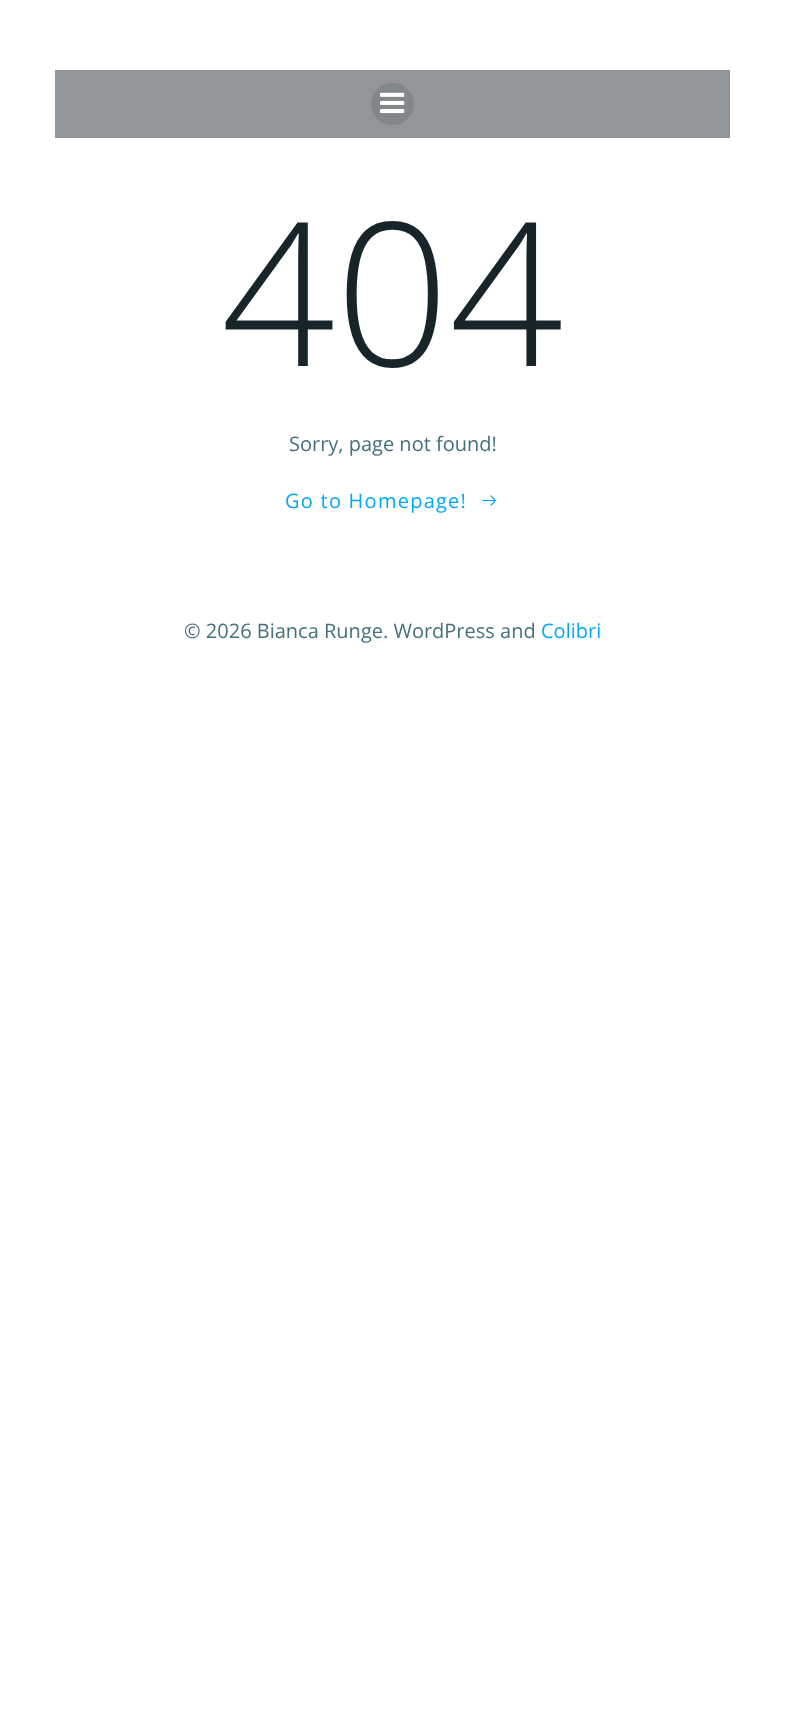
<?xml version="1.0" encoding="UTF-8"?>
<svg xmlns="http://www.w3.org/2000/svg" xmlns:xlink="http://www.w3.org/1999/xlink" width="785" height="1718">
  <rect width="100%" height="100%" fill="#ffffff" />
  <rect x="55" y="70" width="675" height="68" fill="#909699" />
  <rect x="371" y="83" width="43" height="42" rx="21" fill="#82878a" />
  <image x="380" y="92" width="25" height="22" xlink:href="image1.png" />
  <image x="482" y="495" width="15" height="11" xlink:href="image2.png" />
  <text x="221" y="366" style="font-family: Open Sans; font-size: 200px; font-weight: 300; fill: #17252a">404</text>
  <text x="289" y="451" style="font-family: Open Sans; font-size: 20px; fill: #46707f">Sorry, page not found!</text>
  <text x="285" y="508" style="font-family: Open Sans; font-size: 20px; letter-spacing: 1.25px; fill: #03a9f4">Go to Homepage!</text>
  <text x="184" y="638" style="font-family: Open Sans; font-size: 20px; fill: #46707f">© 2026 Bianca Runge. WordPress and</text>
  <text x="541" y="638" style="font-family: Open Sans; font-size: 20px; fill: #03a9f4">Colibri</text>
</svg>
